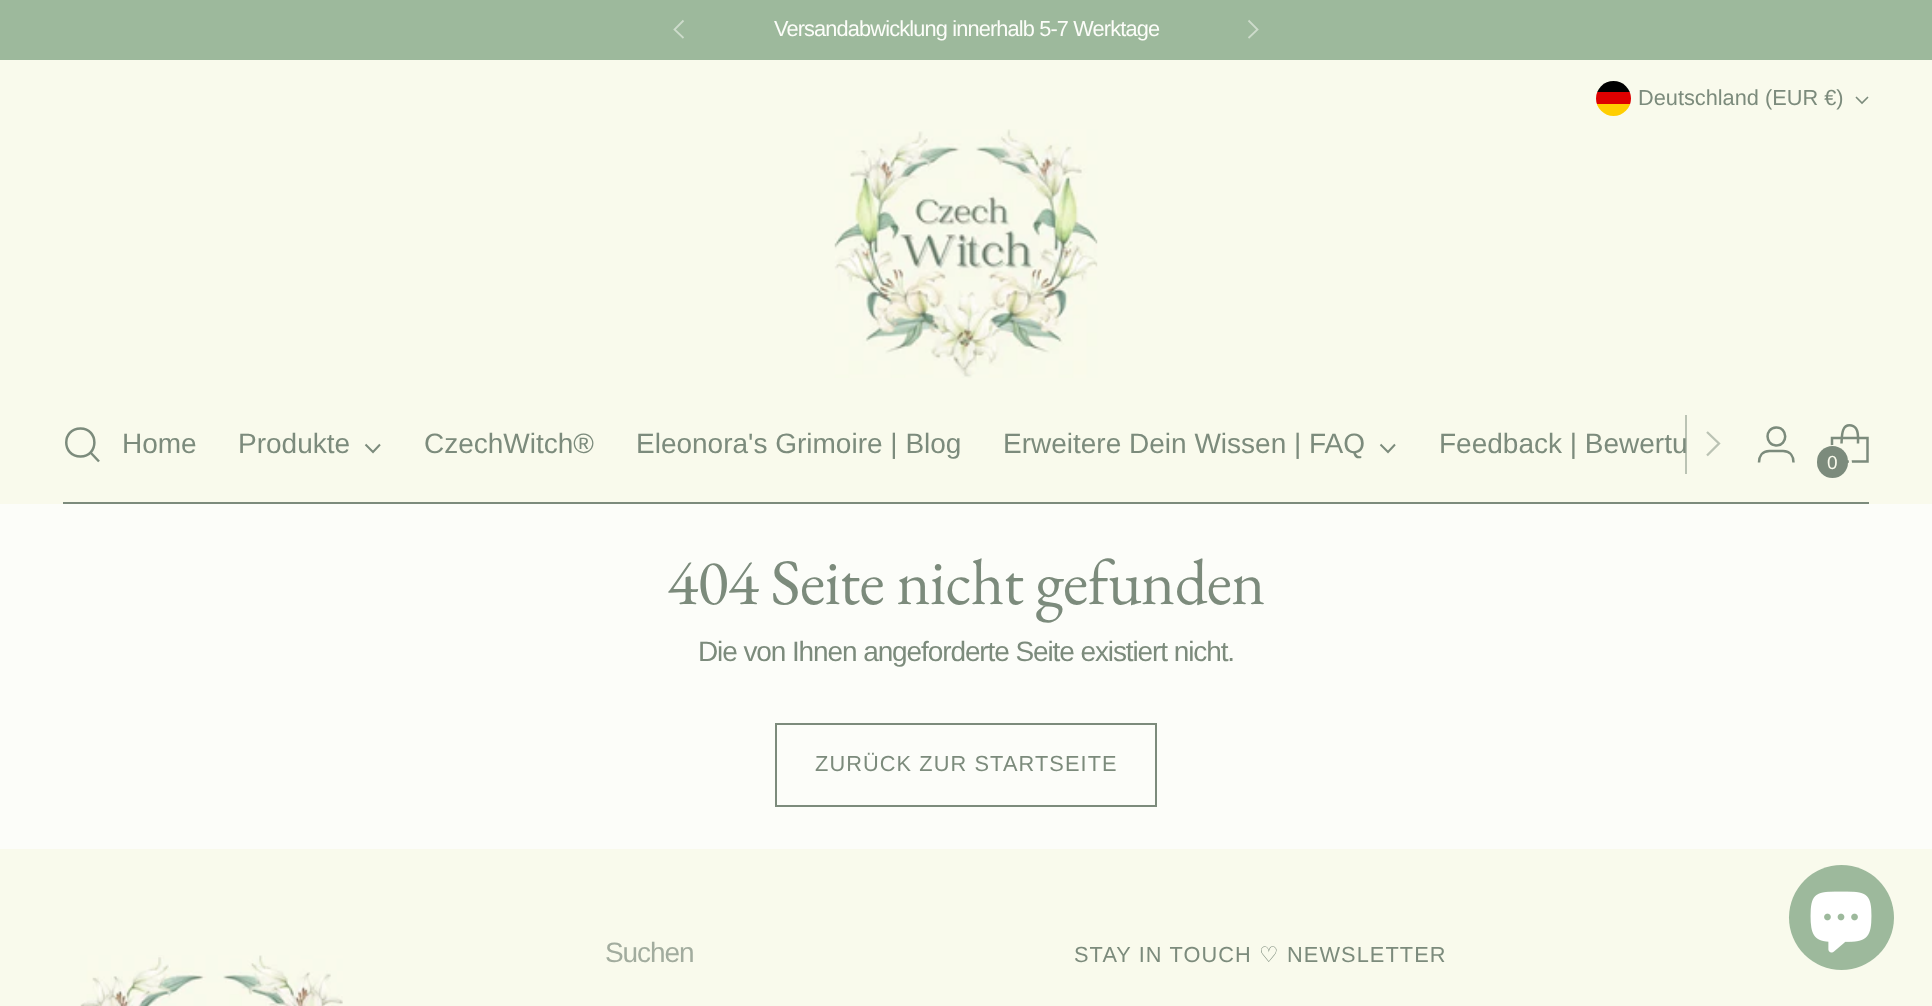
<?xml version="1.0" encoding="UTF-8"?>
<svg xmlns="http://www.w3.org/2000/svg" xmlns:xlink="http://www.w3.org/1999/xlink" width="1932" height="1006">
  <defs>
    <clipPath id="clip1"><rect x="1596" y="81" width="35" height="35" rx="17.5" /></clipPath>
  </defs>
  <rect width="100%" height="100%" fill="#fcfdf9" />
  <rect width="1932" height="60" fill="#9db99c" />
  <path d="M 683.5 20.5 l -9 9 l 9 8.5" fill="none" stroke="#cddbcb" stroke-width="1.8" />
  <path d="M 1248.5 38 l 9 -8.5 l -9 -9" fill="none" stroke="#cddbcb" stroke-width="1.8" />
  <rect y="60" width="1932" height="444" fill="#f9faec" />
  <rect x="63" y="502" width="1806" height="2" fill="#7c8b7c" />
  <g clip-path="url(#clip1)">
    <rect x="1597" y="104" width="33" height="12" fill="#ffce00" />
    <rect x="1597" y="81" width="33" height="11" fill="#000000" />
    <rect x="1596" y="92" width="35" height="12" fill="#dd0000" />
  </g>
  <path d="M 1856 97 l 6 6 l 6 -6" fill="none" stroke="#7c8b7c" stroke-width="1.6" />
  <image x="834" y="129" width="264" height="249" xlink:href="image1.png" />
  <path d="M 80.5 456.5 c 18.5 0 18.5 -28 0 -28 c -19 0 -19 28 0 28 z" fill="none" stroke="#7c8b7c" stroke-width="2.5" stroke-linecap="round" />
  <path d="M 90.5 452.5 l 8.5 9" fill="none" stroke="#7c8b7c" stroke-width="2.5" />
  <path d="M 365.5 444.5 l 7.5 7.5 l 7 -7.5" fill="none" stroke="#7c8b7c" stroke-width="2" />
  <path d="M 1380.5 444.5 l 7.5 7.5 l 7 -7.5" fill="none" stroke="#7c8b7c" stroke-width="2" />
  <rect x="1685" y="415" width="2" height="59" fill="#bbc3b4" />
  <path d="M 1707 455.5 l 12 -12 l -12 -11.5" fill="none" stroke="#bbc3b4" stroke-width="2.3" />
  <path d="M 1776 445.5 c 12.5 0 12 -18.5 0 -18 c -11.5 0.5 -11 17.5 0 18 z m -17 17 c 0 -6 3 -11.5 10.5 -11.5 h 13.5 c 7.5 0 10.5 5.5 10.5 11.5" fill="none" stroke="#7c8b7c" stroke-width="2.5" />
  <path d="M 1858 443.5 c 0 -4.5 0.5 -9 -1 -13 c -1 -2.5 -3 -4.5 -5.5 -5 c -10.5 -2 -9.5 11.5 -10 18" fill="none" stroke="#7c8b7c" stroke-width="2.5" stroke-linejoin="bevel" />
  <path d="M 1867.5 461.5 v -23.5 h -35.5 v 23.5 z" fill="none" stroke="#7c8b7c" stroke-width="2.5" />
  <rect x="1816.5" y="446.5" width="34" height="33" rx="16.5" fill="none" stroke="#f9faec" stroke-width="3" />
  <rect x="1817" y="446" width="31" height="32" rx="15.5" fill="#7c8b7c" />
  <rect x="776" y="724" width="380" height="82" fill="none" stroke="#7c8b7c" stroke-width="2" />
  <rect y="849" width="1932" height="157" fill="#f9faec" />
  <image x="80" y="955" width="263" height="51" xlink:href="image2.png" />
  <circle cx="1841.5" cy="917.5" r="52.5" fill="#9db99c" />
  <image x="1810" y="891" width="62" height="62" xlink:href="image3.png" />
  <text x="774" y="36" style="font-family: Arimo; font-size: 21.75px; letter-spacing: -0.85px; fill: #fcfdf9">Versandabwicklung innerhalb 5-7 Werktage</text>
  <text x="1638" y="105" style="font-family: Arimo; font-size: 21.75px; fill: #7c8b7c">Deutschland (EUR €)</text>
  <text x="122" y="453" style="font-family: Arimo; font-size: 28px; fill: #7c8b7c">Home</text>
  <text x="238" y="453" style="font-family: Arimo; font-size: 28px; fill: #7c8b7c">Produkte</text>
  <text x="424" y="453" style="font-family: Arimo; font-size: 28px; fill: #7c8b7c">CzechWitch®</text>
  <text x="636" y="453" style="font-family: Arimo; font-size: 28px; fill: #7c8b7c">Eleonora's Grimoire | Blog</text>
  <text x="1003" y="453" style="font-family: Arimo; font-size: 28px; fill: #7c8b7c">Erweitere Dein Wissen | FAQ</text>
  <text x="1439" y="453" style="font-family: Arimo; font-size: 28px; fill: #7c8b7c">Feedback | Bewertu</text>
  <text x="1827" y="469" style="font-family: Arimo; font-size: 19px; letter-spacing: -1.1px; fill: #f9faec">0</text>
  <text x="667" y="604" style="font-family: EB Garamond; font-size: 64.75px; letter-spacing: -0.65px; fill: #7c8b7c">404 Seite nicht gefunden</text>
  <text x="698" y="661" style="font-family: Arimo; font-size: 28px; letter-spacing: -1.1px; fill: #7c8b7c">Die von Ihnen angeforderte Seite existiert nicht.</text>
  <text x="815" y="771" style="font-family: Arimo; font-size: 21.75px; letter-spacing: 1.1px; fill: #7c8b7c">ZURÜCK ZUR STARTSEITE</text>
  <text x="605" y="962" style="font-family: Arimo; font-size: 28px; letter-spacing: -1.1px; fill: #a2ac9e">Suchen</text>
  <text x="1074" y="962" style="font-family: Arimo; font-size: 21.75px; letter-spacing: 1.1px; fill: #7c8b7c">STAY IN TOUCH</text>
  <text x="1259" y="962" style="font-family: DejaVu Sans; font-size: 21.75px; letter-spacing: 1.1px; fill: #7c8b7c">♡</text>
  <text x="1287" y="962" style="font-family: Arimo; font-size: 21.75px; letter-spacing: 1.1px; fill: #7c8b7c">NEWSLETTER</text>
</svg>
